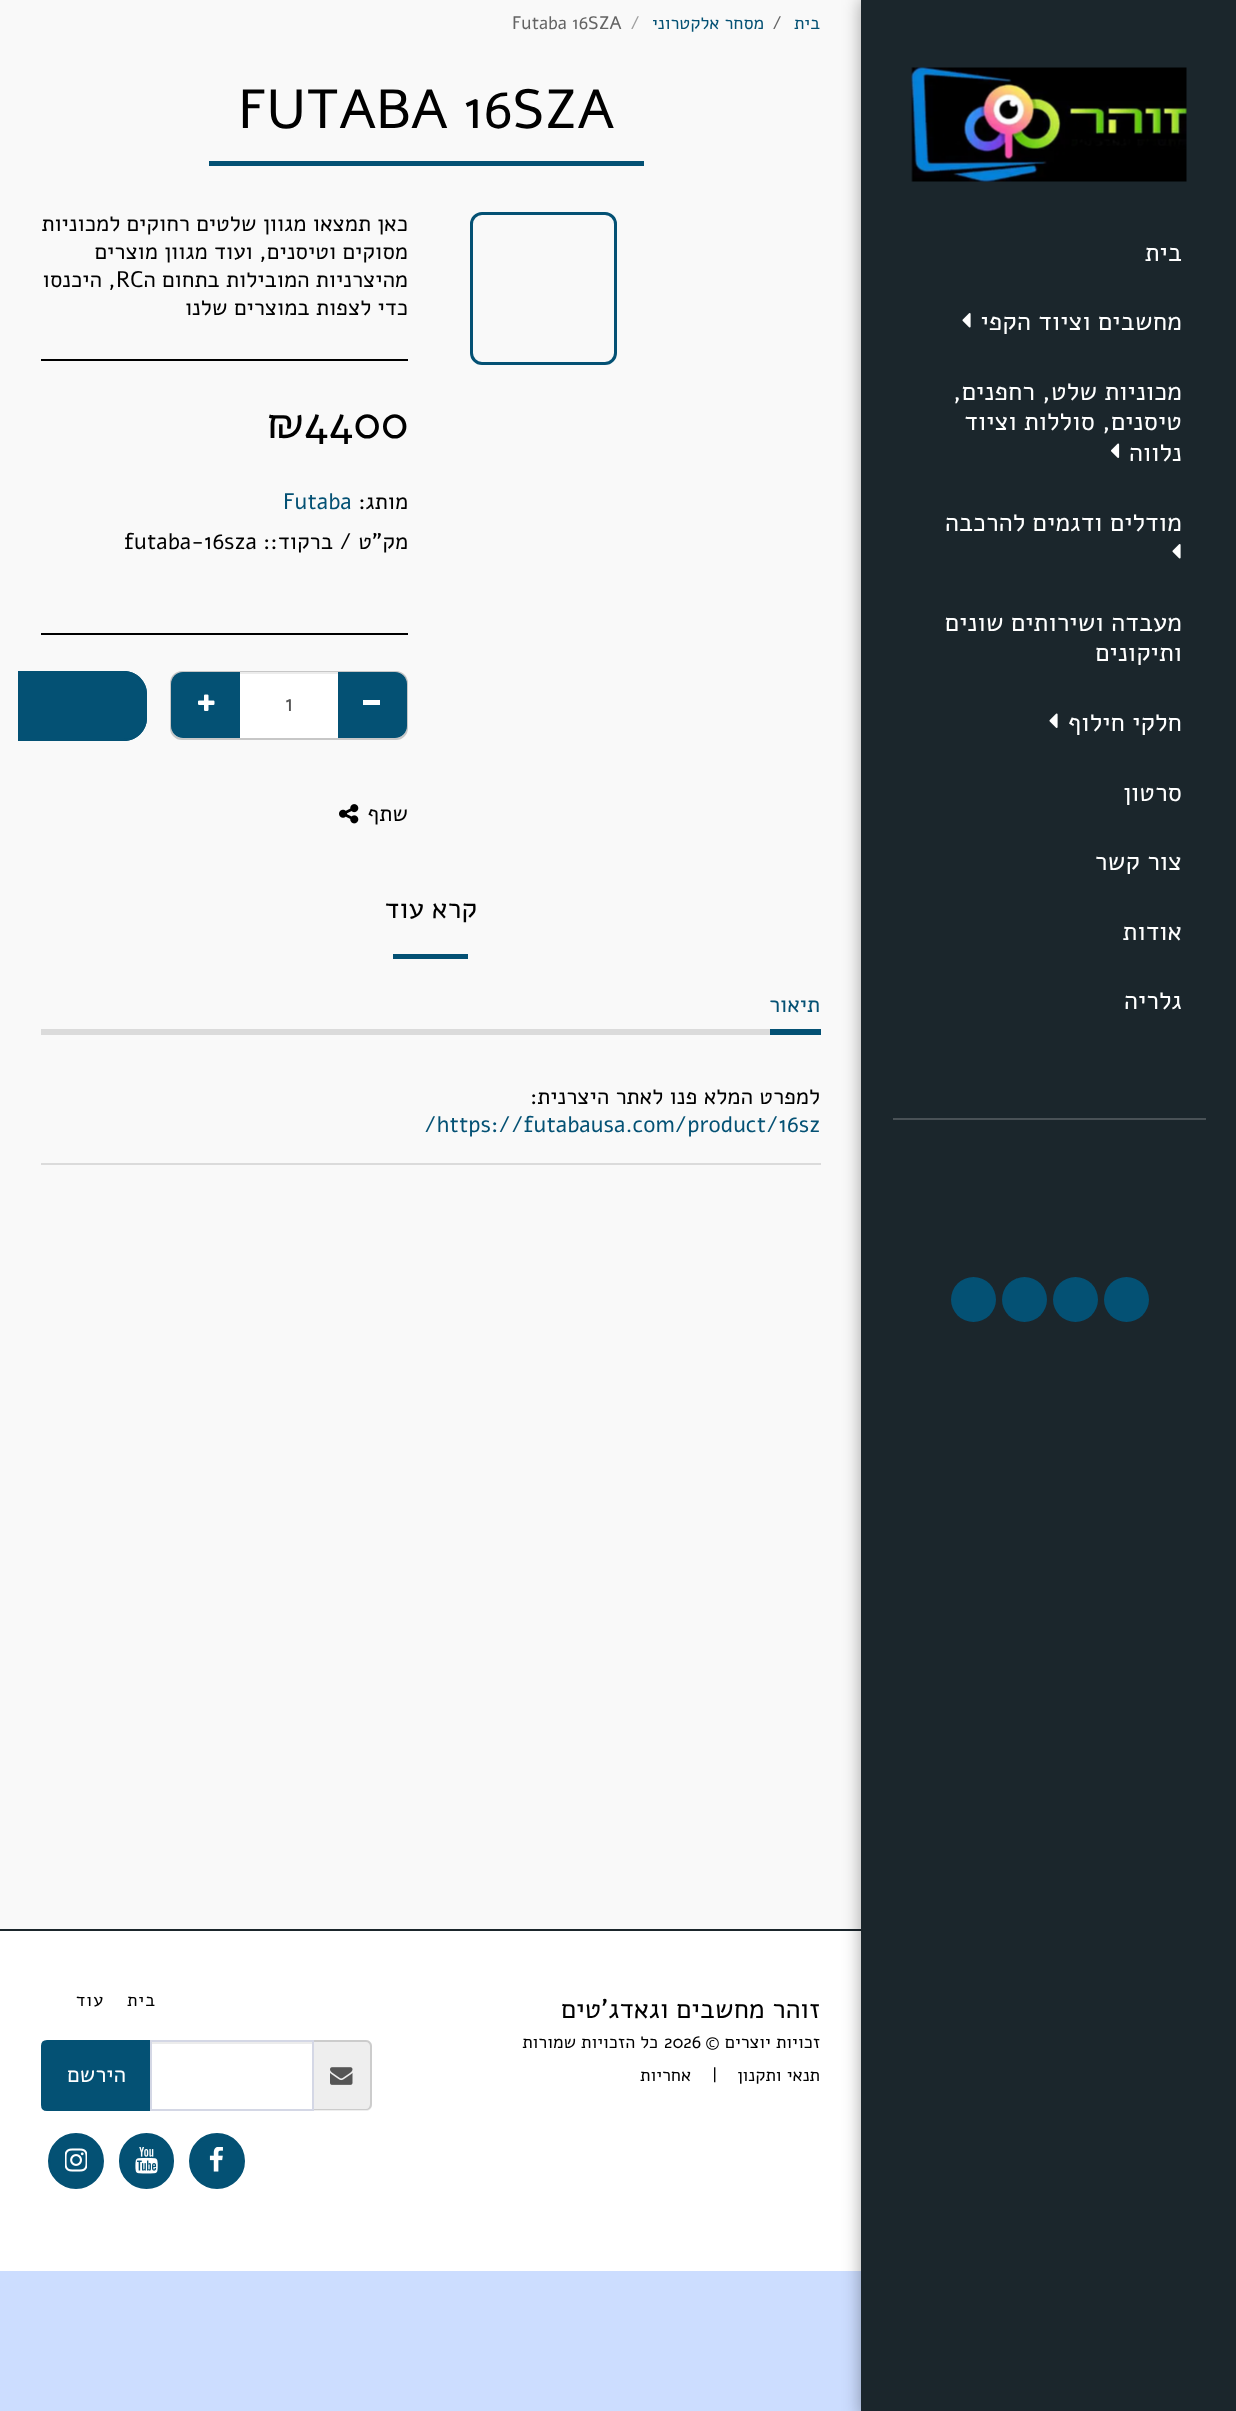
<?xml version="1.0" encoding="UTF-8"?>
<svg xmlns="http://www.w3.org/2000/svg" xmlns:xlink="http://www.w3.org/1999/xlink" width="1236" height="2411">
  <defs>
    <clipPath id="clip1"><rect x="18" y="210" width="413" height="654" /></clipPath>
  </defs>
  <rect width="100%" height="100%" fill="#ccddff" />
  <rect width="861" height="1929" fill="#f9f9f9" />
  <rect y="1931" width="861" height="340" fill="#ffffff" />
  <rect y="1929" width="861" height="2" fill="#1b262c" />
  <rect x="861" y="-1" width="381" height="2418" fill="#000000" fill-opacity="0.35" filter="blur(9px)" />
  <rect x="861" width="375" height="2411" fill="#1b262c" />
  <image x="911" y="67" width="276" height="115" xlink:href="image1.png" />
  <image x="962" y="313" width="9" height="15" xlink:href="image2.png" />
  <image x="1111" y="443" width="9" height="15" xlink:href="image3.png" />
  <image x="1172" y="544" width="9" height="15" xlink:href="image2.png" />
  <image x="1049" y="713" width="9" height="15" xlink:href="image4.png" />
  <rect x="893" y="1118" width="313" height="2" fill="#495156" />
  <circle cx="1126.5" cy="1299.5" r="22.5" fill="#045174" />
  <circle cx="1075.5" cy="1299.5" r="22.5" fill="#045174" />
  <circle cx="1024.5" cy="1299.5" r="22.5" fill="#045174" />
  <circle cx="973.5" cy="1299.5" r="22.5" fill="#045174" />
  <rect x="209" y="161" width="435" height="5" fill="#045174" />
  <rect x="471.5" y="213.5" width="144" height="150" rx="10.5" fill="none" stroke="#045174" stroke-width="3" />
  <rect x="41" y="359" width="367" height="2" fill="#000000" />
  <rect x="41" y="633" width="367" height="2" fill="#000000" />
  <rect x="171" y="672" width="236" height="67" rx="11" fill="none" stroke="#c7c7c7" stroke-width="2" />
  <path d="M 336 672 h 59 c 6.5 0 12 5.5 12 12 v 42 c 0 6.5 -5.5 12 -12 12 h -59 z" fill="#045174" />
  <rect x="363" y="700" width="17" height="5" fill="#ffffff" />
  <path d="M 183 672 h 59 v 66 h -59 c -6.5 0 -12 -5.5 -12 -12 v -42 c 0 -6.5 5.5 -12 12 -12 z" fill="#045174" />
  <rect x="240" y="674" width="98" height="64" fill="#ffffff" />
  <rect x="240" y="672" width="98" height="2" fill="#ececec" />
  <image x="198" y="694" width="17" height="17" xlink:href="image5.png" />
  <path d="M 18 671 h 106 c 12.5 0 23 10.5 23 23 v 24 c 0 12.5 -10.5 23 -23 23 h -106 z" fill="#045174" />
  <g clip-path="url(#clip1)">
    <rect x="-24" y="672" width="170" height="68" rx="22" fill="none" stroke="#045174" stroke-width="2" />
  </g>
  <image x="339" y="804" width="20" height="20" xlink:href="image6.png" />
  <rect x="393" y="954" width="75" height="5" fill="#045174" />
  <rect x="41" y="1029" width="729" height="6" fill="#dbdbdb" />
  <rect x="770" y="1029" width="51" height="6" fill="#045174" />
  <rect x="41" y="1163" width="780" height="2" fill="#dbdbdb" />
  <path d="M 314 2040 h 52 c 3.5 0 6 2.5 6 6 v 59 c 0 3.5 -2.5 6 -6 6 h -52 z" fill="#eeeeee" />
  <path d="M 314 2040 h 52 c 3 0 6 3 6 6 v 58 c 0 4 -3 6 -6 6 h -52 z m 0 2 h 52 c 2 0 4 2 4 4 v 58 c 0 3 -2 5 -4 5 h -52 z" fill="#cccccc" fill-rule="evenodd" />
  <image x="330" y="2067" width="23" height="18" xlink:href="image7.png" />
  <rect x="152" y="2042" width="160" height="2" fill="#ececec" />
  <path d="M 47 2041 h 104 v 69 h -104 c -3 0 -5 -2 -5 -5 v -59 c 0 -3 2 -5 5 -5 z" fill="#045174" stroke="#045174" stroke-width="2" />
  <rect x="151" y="2041" width="162" height="69" fill="none" stroke="#d4d7e5" stroke-width="2" />
  <circle cx="217" cy="2161" r="27" fill="#045174" stroke="#045174" stroke-width="2" />
  <image x="209" y="2147" width="14" height="25" xlink:href="image8.png" />
  <rect x="120" y="2134" width="53" height="54" rx="26.5" fill="#045174" stroke="#045174" stroke-width="2" />
  <image x="135" y="2147" width="23" height="27" xlink:href="image9.png" />
  <circle cx="76" cy="2161" r="27" fill="#045174" stroke="#045174" stroke-width="2" />
  <image x="65" y="2148" width="22" height="24" xlink:href="image10.png" />
  <text x="1182" y="261" style="font-family: Alef; font-size: 25.5px; letter-spacing: 0.1px; direction: rtl; fill: #ffffff">בית</text>
  <text x="1182" y="330" style="font-family: Alef; font-size: 25.5px; letter-spacing: 0.1px; direction: rtl; fill: #ffffff">מחשבים וציוד הקפי</text>
  <text x="1182" y="400" style="font-family: Alef; font-size: 25.5px; letter-spacing: 0.1px; direction: rtl; fill: #ffffff">מכוניות שלט, רחפנים,</text>
  <text x="1182" y="430" style="font-family: Alef; font-size: 25.5px; letter-spacing: 0.1px; direction: rtl; fill: #ffffff">טיסנים, סוללות וציוד</text>
  <text x="1182" y="461" style="font-family: Alef; font-size: 25.5px; letter-spacing: 0.1px; direction: rtl; fill: #ffffff">נלווה</text>
  <text x="1182" y="531" style="font-family: Alef; font-size: 25.5px; letter-spacing: 0.1px; direction: rtl; fill: #ffffff">מודלים ודגמים להרכבה</text>
  <text x="1182" y="631" style="font-family: Alef; font-size: 25.5px; letter-spacing: 0.1px; direction: rtl; fill: #ffffff">מעבדה ושירותים שונים</text>
  <text x="1182" y="661" style="font-family: Alef; font-size: 25.5px; letter-spacing: 0.1px; direction: rtl; fill: #ffffff">ותיקונים</text>
  <text x="1182" y="731" style="font-family: Alef; font-size: 25.5px; letter-spacing: 0.1px; direction: rtl; fill: #ffffff">חלקי חילוף</text>
  <text x="1182" y="801" style="font-family: Alef; font-size: 25.5px; letter-spacing: 0.1px; direction: rtl; fill: #ffffff">סרטון</text>
  <text x="1182" y="870" style="font-family: Alef; font-size: 25.5px; letter-spacing: 0.1px; direction: rtl; fill: #ffffff">צור קשר</text>
  <text x="1182" y="940" style="font-family: Alef; font-size: 25.5px; letter-spacing: 0.1px; direction: rtl; fill: #ffffff">אודות</text>
  <text x="1182" y="1009" style="font-family: Alef; font-size: 25.5px; letter-spacing: 0.1px; direction: rtl; fill: #ffffff">גלריה</text>
  <text x="820" y="29" style="font-family: Alef; font-size: 18px; direction: rtl; fill: #045174">בית</text>
  <text x="772" y="29" style="font-family: Alef; font-size: 18px; fill: #646464">/</text>
  <text x="764" y="29" style="font-family: Alef; font-size: 18px; direction: rtl; fill: #045174">מסחר אלקטרוני</text>
  <text x="630" y="29" style="font-family: Alef; font-size: 18px; fill: #9f9f9f">/</text>
  <text x="512" y="29" style="font-family: Alef; font-size: 18px; fill: #646464">Futaba 16SZA</text>
  <text x="238" y="128" style="font-family: Alef; font-size: 55px; fill: #000000">FUTABA 16SZA</text>
  <text x="408" y="231" style="font-family: Alef; font-size: 22.5px; direction: rtl; fill: #000000">כאן תמצאו מגוון שלטים רחוקים למכוניות</text>
  <text x="408" y="259" style="font-family: Alef; font-size: 22.5px; direction: rtl; fill: #000000">מסוקים וטיסנים, ועוד מגוון מוצרים</text>
  <text x="408" y="287" style="font-family: Alef; font-size: 22.5px; direction: rtl; fill: #000000">מהיצרניות המובילות בתחום ה</text>
  <text x="116" y="287" style="font-family: Alef; font-size: 22.5px; fill: #000000">RC</text>
  <text x="116" y="287" style="font-family: Alef; font-size: 22.5px; direction: rtl; fill: #000000">, היכנסו</text>
  <text x="408" y="315" style="font-family: Alef; font-size: 22.5px; direction: rtl; fill: #000000">כדי לצפות במוצרים שלנו</text>
  <text x="267" y="438" style="font-family: Alef; font-size: 45px; fill: #000000">₪4400</text>
  <text x="408" y="509" style="font-family: Alef; font-size: 22.5px; direction: rtl; fill: #000000">מותג:</text>
  <text x="283" y="509" style="font-family: Alef; font-size: 22.5px; fill: #045174">Futaba</text>
  <text x="408" y="549" style="font-family: Alef; font-size: 22.5px; direction: rtl; fill: #000000">מק"ט / ברקוד::</text>
  <text x="124" y="549" style="font-family: Alef; font-size: 22.5px; fill: #000000">futaba-16sza</text>
  <text x="285" y="711" style="font-family: Alef; font-size: 22.5px; fill: #555555">1</text>
  <text x="408" y="821" style="font-family: Alef; font-size: 22.5px; direction: rtl; fill: #000000">שתף</text>
  <text x="477" y="918" style="font-family: Alef; font-size: 28px; direction: rtl; fill: #000000">קרא עוד</text>
  <text x="820" y="1012" style="font-family: Alef; font-size: 22.5px; direction: rtl; fill: #045174">תיאור</text>
  <text x="820" y="1104" style="font-family: Alef; font-size: 22.5px; direction: rtl; fill: #000000">למפרט המלא פנו לאתר היצרנית:</text>
  <text x="424" y="1132" style="font-family: Alef; font-size: 22.5px; fill: #045174">/https://futabausa.com/product/16sz</text>
  <text x="820" y="2018" style="font-family: Alef; font-size: 27px; direction: rtl; fill: #000000">זוהר מחשבים וגאדג'טים</text>
  <text x="820" y="2048" style="font-family: Alef; font-size: 18px; direction: rtl; fill: #000000">זכויות יוצרים ©</text>
  <text x="664" y="2048" style="font-family: Alef; font-size: 18px; fill: #000000">2026</text>
  <text x="658" y="2048" style="font-family: Alef; font-size: 18px; direction: rtl; fill: #000000">כל הזכויות שמורות</text>
  <text x="820" y="2081" style="font-family: Alef; font-size: 18px; direction: rtl; fill: #000000">תנאי ותקנון</text>
  <text x="712" y="2081" style="font-family: Alef; font-size: 18px; fill: #000000">|</text>
  <text x="691" y="2081" style="font-family: Alef; font-size: 18px; direction: rtl; fill: #000000">אחריות</text>
  <text x="156" y="2006" style="font-family: Alef; font-size: 18px; letter-spacing: 1px; direction: rtl; fill: #000000">בית</text>
  <text x="104" y="2006" style="font-family: Alef; font-size: 18px; letter-spacing: 1px; direction: rtl; fill: #000000">עוד</text>
  <text x="126" y="2082" style="font-family: Alef; font-size: 22.5px; direction: rtl; fill: #ffffff">הירשם</text>
</svg>
